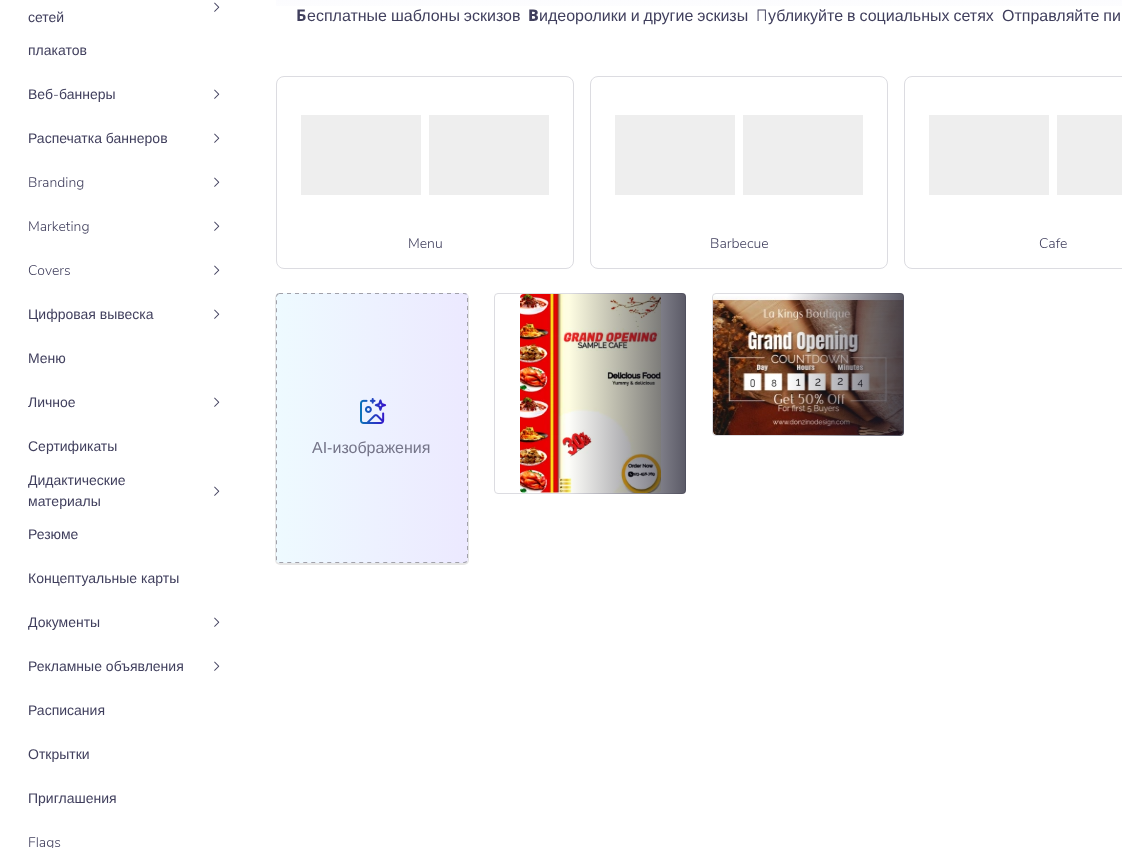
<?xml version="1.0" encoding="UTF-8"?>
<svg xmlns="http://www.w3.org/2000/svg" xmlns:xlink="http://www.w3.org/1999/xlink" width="1146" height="848">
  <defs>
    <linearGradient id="g1" gradientUnits="userSpaceOnUse" x1="699" y1="-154" x2="699" y2="28"><stop offset="0" stop-color="#eaebfa" /><stop offset="1" stop-color="#ffffff" /></linearGradient>
    <clipPath id="clip1"><rect x="276" y="60" width="846" height="225" /></clipPath>
    <linearGradient id="g2" gradientUnits="userSpaceOnUse" x1="494" y1="394" x2="686" y2="394"><stop offset="0.39" stop-color="#141325" stop-opacity="0" /><stop offset="1" stop-color="#141325" stop-opacity="0.7" /></linearGradient>
    <linearGradient id="g3" gradientUnits="userSpaceOnUse" x1="712" y1="365" x2="904" y2="365"><stop offset="0.39" stop-color="#141325" stop-opacity="0" /><stop offset="1" stop-color="#141325" stop-opacity="0.7" /></linearGradient>
    <linearGradient id="g4" gradientUnits="userSpaceOnUse" x1="276" y1="428" x2="468" y2="428"><stop offset="0" stop-color="#eefaff" /><stop offset="1" stop-color="#ece9ff" /></linearGradient>
  </defs>
  <rect width="100%" height="100%" fill="#ffffff" />
  <image x="214" y="2" width="6" height="10" xlink:href="image1.png" />
  <image x="214" y="89" width="6" height="10" xlink:href="image1.png" />
  <image x="214" y="133" width="6" height="10" xlink:href="image1.png" />
  <image x="214" y="177" width="6" height="10" xlink:href="image1.png" />
  <image x="214" y="221" width="6" height="10" xlink:href="image1.png" />
  <image x="214" y="265" width="6" height="10" xlink:href="image1.png" />
  <image x="214" y="309" width="6" height="10" xlink:href="image1.png" />
  <image x="214" y="397" width="6" height="10" xlink:href="image1.png" />
  <image x="214" y="486" width="6" height="10" xlink:href="image1.png" />
  <image x="214" y="617" width="6" height="10" xlink:href="image1.png" />
  <image x="214" y="661" width="6" height="10" xlink:href="image1.png" />
  <rect x="276" width="846" height="6" fill="url(#g1)" />
  <rect x="276.5" y="76.5" width="297" height="192" rx="7.5" fill="none" stroke="#dcdce1" />
  <rect x="301" y="115" width="120" height="80" fill="#eeeeee" />
  <rect x="429" y="115" width="120" height="80" fill="#eeeeee" />
  <rect x="590.5" y="76.5" width="297" height="192" rx="7.5" fill="none" stroke="#dcdce1" />
  <rect x="615" y="115" width="120" height="80" fill="#eeeeee" />
  <rect x="743" y="115" width="120" height="80" fill="#eeeeee" />
  <g clip-path="url(#clip1)">
    <rect x="904.5" y="76.5" width="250" height="192" rx="7.5" fill="none" stroke="#dcdce1" />
  </g>
  <rect x="929" y="115" width="120" height="80" fill="#eeeeee" />
  <rect x="1057" y="115" width="65" height="80" fill="#eeeeee" />
  <rect x="494.5" y="293.5" width="191" height="200" rx="3.5" fill="none" stroke="#dcdce1" />
  <image x="520" y="294" width="141" height="199" xlink:href="image2.png" />
  <rect x="494" y="293" width="192" height="201" rx="4" fill="url(#g2)" />
  <rect x="712.5" y="293.5" width="191" height="142" rx="3.5" fill="none" stroke="#dcdce1" />
  <image x="713" y="296" width="190" height="139" xlink:href="image3.png" />
  <rect x="712" y="293" width="192" height="143" rx="4" fill="url(#g3)" />
  <rect x="275" y="293" width="194" height="272" rx="5" fill="#000000" fill-opacity="0.1" filter="blur(0.5px)" />
  <rect x="276" y="293" width="192" height="270" rx="4" fill="url(#g4)" />
  <image x="360" y="398" width="27" height="26" xlink:href="image5.png" />
  <text x="28" y="22" style="font-family: Liberation Sans; font-size: 14px; fill: #403f5d">сетей</text>
  <text x="28" y="55" style="font-family: Liberation Sans; font-size: 14px; fill: #403f5d">плакатов</text>
  <text x="28" y="99" style="font-family: Liberation Sans; font-size: 14px; fill: #403f5d">Веб</text>
  <text x="53" y="99" style="font-family: Nunito Sans; font-size: 14px; font-weight: 300; fill: #403f5d">-</text>
  <text x="59" y="99" style="font-family: Liberation Sans; font-size: 14px; fill: #403f5d">баннеры</text>
  <text x="28" y="143" style="font-family: Liberation Sans; font-size: 14px; fill: #403f5d">Распечатка баннеров</text>
  <text x="28" y="187" style="font-family: Nunito Sans; font-size: 14px; font-weight: 300; fill: #403f5d">Branding</text>
  <text x="28" y="231" style="font-family: Nunito Sans; font-size: 14px; font-weight: 300; fill: #403f5d">Marketing</text>
  <text x="28" y="275" style="font-family: Nunito Sans; font-size: 14px; font-weight: 300; fill: #403f5d">Covers</text>
  <text x="28" y="319" style="font-family: Liberation Sans; font-size: 14px; fill: #403f5d">Цифровая вывеска</text>
  <text x="28" y="363" style="font-family: Liberation Sans; font-size: 14px; fill: #403f5d">Меню</text>
  <text x="28" y="407" style="font-family: Liberation Sans; font-size: 14px; fill: #403f5d">Личное</text>
  <text x="28" y="451" style="font-family: Liberation Sans; font-size: 14px; fill: #403f5d">Сертификаты</text>
  <text x="28" y="485" style="font-family: Liberation Sans; font-size: 14px; fill: #403f5d">Дидактические</text>
  <text x="28" y="506" style="font-family: Liberation Sans; font-size: 14px; fill: #403f5d">материалы</text>
  <text x="28" y="539" style="font-family: Liberation Sans; font-size: 14px; fill: #403f5d">Резюме</text>
  <text x="28" y="583" style="font-family: Liberation Sans; font-size: 14px; fill: #403f5d">Концептуальные карты</text>
  <text x="28" y="627" style="font-family: Liberation Sans; font-size: 14px; fill: #403f5d">Документы</text>
  <text x="28" y="671" style="font-family: Liberation Sans; font-size: 14px; fill: #403f5d">Рекламные объявления</text>
  <text x="28" y="715" style="font-family: Liberation Sans; font-size: 14px; fill: #403f5d">Расписания</text>
  <text x="28" y="759" style="font-family: Liberation Sans; font-size: 14px; fill: #403f5d">Открытки</text>
  <text x="28" y="803" style="font-family: Liberation Sans; font-size: 14px; fill: #403f5d">Приглашения</text>
  <text x="28" y="847" style="font-family: Nunito Sans; font-size: 14px; font-weight: 300; fill: #403f5d">Flags</text>
  <text x="296" y="21" style="font-family: Noto Sans; font-size: 16px; font-weight: bold; fill: #403f5d">Б</text>
  <text x="307" y="21" word-spacing="-0.5" style="font-family: Liberation Sans; font-size: 16px; fill: #403f5d">есплатные шаблоны эскизов</text>
  <text x="528" y="21" style="font-family: Noto Sans; font-size: 16px; font-weight: 800; fill: #403f5d">В</text>
  <text x="539" y="21" word-spacing="-0.5" style="font-family: Liberation Sans; font-size: 16px; fill: #403f5d">идеоролики и другие эскизы</text>
  <text x="756" y="21" style="font-family: Noto Sans; font-size: 16px; font-weight: 300; fill: #403f5d">П</text>
  <text x="768" y="21" word-spacing="-0.5" style="font-family: Liberation Sans; font-size: 16px; fill: #403f5d">убликуйте в социальных сетях</text>
  <text x="1002" y="21" word-spacing="-0.5" style="font-family: Liberation Sans; font-size: 16px; fill: #403f5d">Отправляйте пи</text>
  <text x="408" y="248" style="font-family: Nunito Sans; font-size: 14px; font-weight: 300; fill: #403f5d">Menu</text>
  <text x="710" y="248" style="font-family: Nunito Sans; font-size: 14px; font-weight: 300; fill: #403f5d">Barbecue</text>
  <text x="1039" y="248" style="font-family: Nunito Sans; font-size: 14px; font-weight: 300; fill: #403f5d">Cafe</text>
  <text x="312" y="453" style="font-family: Liberation Sans; font-size: 16px; fill: #757589">AI-изображения</text>
  <image x="276" y="293" width="192" height="270" xlink:href="image4.png" />
</svg>
